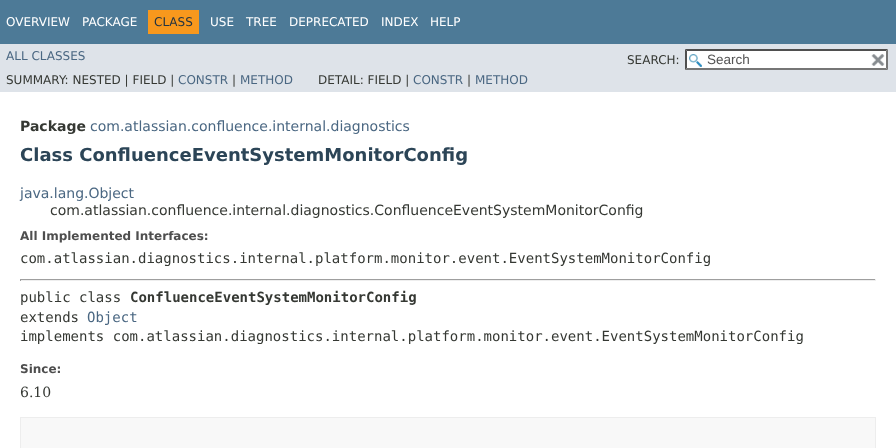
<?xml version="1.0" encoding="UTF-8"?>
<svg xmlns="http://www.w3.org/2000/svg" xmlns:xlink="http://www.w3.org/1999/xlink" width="896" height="448">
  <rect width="100%" height="100%" fill="#ffffff" />
  <rect width="896" height="44" fill="#4d7a97" />
  <rect x="148" y="10" width="51" height="24" fill="#f8981d" />
  <rect y="44" width="896" height="48" fill="#dee3e9" />
  <rect x="685" y="49" width="203" height="21" fill="#ffffff" />
  <image x="689" y="54" width="13" height="13" xlink:href="image1.png" />
  <path d="M 685 49 h 203 l -2 2 h -199 z" fill="#4f4f4f" />
  <path d="M 888 49 v 21 l -2 -2 v -17 z" fill="#767676" />
  <path d="M 888 70 h -203 l 2 -2 h 199 z" fill="#767676" />
  <path d="M 685 70 v -21 l 2 2 v 17 z" fill="#4f4f4f" />
  <image x="871" y="54" width="14" height="12" xlink:href="image2.png" />
  <rect x="20" y="279" width="856" height="1" fill="#9f9f9f" />
  <rect x="875" y="279" width="1" height="2" fill="#eeeeee" />
  <rect x="20" y="280" width="856" height="1" fill="#eeeeee" />
  <rect x="20" y="279" width="1" height="2" fill="#9f9f9f" />
  <rect x="20.5" y="417.5" width="855" height="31" fill="#f8f8f8" stroke="#ededed" />
  <text x="6" y="26" style="font-family: DejaVu Sans; font-size: 12px; fill: #ffffff">OVERVIEW</text>
  <text x="82" y="26" style="font-family: DejaVu Sans; font-size: 12px; fill: #ffffff">PACKAGE</text>
  <text x="154" y="26" style="font-family: DejaVu Sans; font-size: 12px; fill: #253441">CLASS</text>
  <text x="210" y="26" style="font-family: DejaVu Sans; font-size: 12px; fill: #ffffff">USE</text>
  <text x="246" y="26" style="font-family: DejaVu Sans; font-size: 12px; fill: #ffffff">TREE</text>
  <text x="289" y="26" style="font-family: DejaVu Sans; font-size: 12px; fill: #ffffff">DEPRECATED</text>
  <text x="381" y="26" style="font-family: DejaVu Sans; font-size: 12px; fill: #ffffff">INDEX</text>
  <text x="430" y="26" style="font-family: DejaVu Sans; font-size: 12px; fill: #ffffff">HELP</text>
  <text x="6" y="60" style="font-family: DejaVu Sans; font-size: 12px; fill: #4a6782">ALL CLASSES</text>
  <text x="627" y="64" style="font-family: DejaVu Sans; font-size: 12px; fill: #353833">SEARCH:</text>
  <text x="707" y="64" style="font-family: Liberation Sans; font-size: 13.5px; fill: #545454">Search</text>
  <text x="6" y="84" style="font-family: DejaVu Sans; font-size: 12px; fill: #353833">SUMMARY: NESTED | FIELD |</text>
  <text x="178" y="84" style="font-family: DejaVu Sans; font-size: 12px; fill: #4a6782">CONSTR</text>
  <text x="232" y="84" style="font-family: DejaVu Sans; font-size: 12px; fill: #353833">|</text>
  <text x="240" y="84" style="font-family: DejaVu Sans; font-size: 12px; fill: #4a6782">METHOD</text>
  <text x="318" y="84" style="font-family: DejaVu Sans; font-size: 12px; fill: #353833">DETAIL: FIELD |</text>
  <text x="413" y="84" style="font-family: DejaVu Sans; font-size: 12px; fill: #4a6782">CONSTR</text>
  <text x="467" y="84" style="font-family: DejaVu Sans; font-size: 12px; fill: #353833">|</text>
  <text x="475" y="84" style="font-family: DejaVu Sans; font-size: 12px; fill: #4a6782">METHOD</text>
  <text x="20" y="131" style="font-family: DejaVu Sans; font-size: 14px; font-weight: bold; fill: #353833">Package</text>
  <text x="90" y="131" style="font-family: DejaVu Sans; font-size: 14px; fill: #4a6782">com.atlassian.confluence.internal.diagnostics</text>
  <text x="20" y="161" style="font-family: DejaVu Sans; font-size: 18px; font-weight: bold; fill: #2c4557">Class ConfluenceEventSystemMonitorConfig</text>
  <text x="20" y="198" style="font-family: DejaVu Sans; font-size: 14px; fill: #4a6782">java.lang.Object</text>
  <text x="50" y="215" style="font-family: DejaVu Sans; font-size: 14px; fill: #353833">com.atlassian.confluence.internal.diagnostics.ConfluenceEventSystemMonitorConfig</text>
  <text x="20" y="240" style="font-family: DejaVu Sans; font-size: 12px; font-weight: bold; fill: #4e4e4e">All Implemented Interfaces:</text>
  <text x="20" y="263" style="font-family: DejaVu Sans Mono; font-size: 14px; fill: #353833">com.atlassian.diagnostics.internal.platform.monitor.event.EventSystemMonitorConfig</text>
  <text x="20" y="302" style="font-family: DejaVu Sans Mono; font-size: 14px; fill: #353833">public class</text>
  <text x="130" y="302" style="font-family: DejaVu Sans Mono; font-size: 14px; font-weight: bold; fill: #353833">ConfluenceEventSystemMonitorConfig</text>
  <text x="20" y="322" style="font-family: DejaVu Sans Mono; font-size: 14px; fill: #353833">extends</text>
  <text x="87" y="322" style="font-family: DejaVu Sans Mono; font-size: 14px; fill: #4a6782">Object</text>
  <text x="20" y="341" style="font-family: DejaVu Sans Mono; font-size: 14px; fill: #353833">implements com.atlassian.diagnostics.internal.platform.monitor.event.EventSystemMonitorConfig</text>
  <text x="20" y="373" style="font-family: DejaVu Sans; font-size: 12px; font-weight: bold; fill: #4e4e4e">Since:</text>
  <text x="20" y="397" style="font-family: DejaVu Serif; font-size: 14px; fill: #353833">6.10</text>
</svg>
